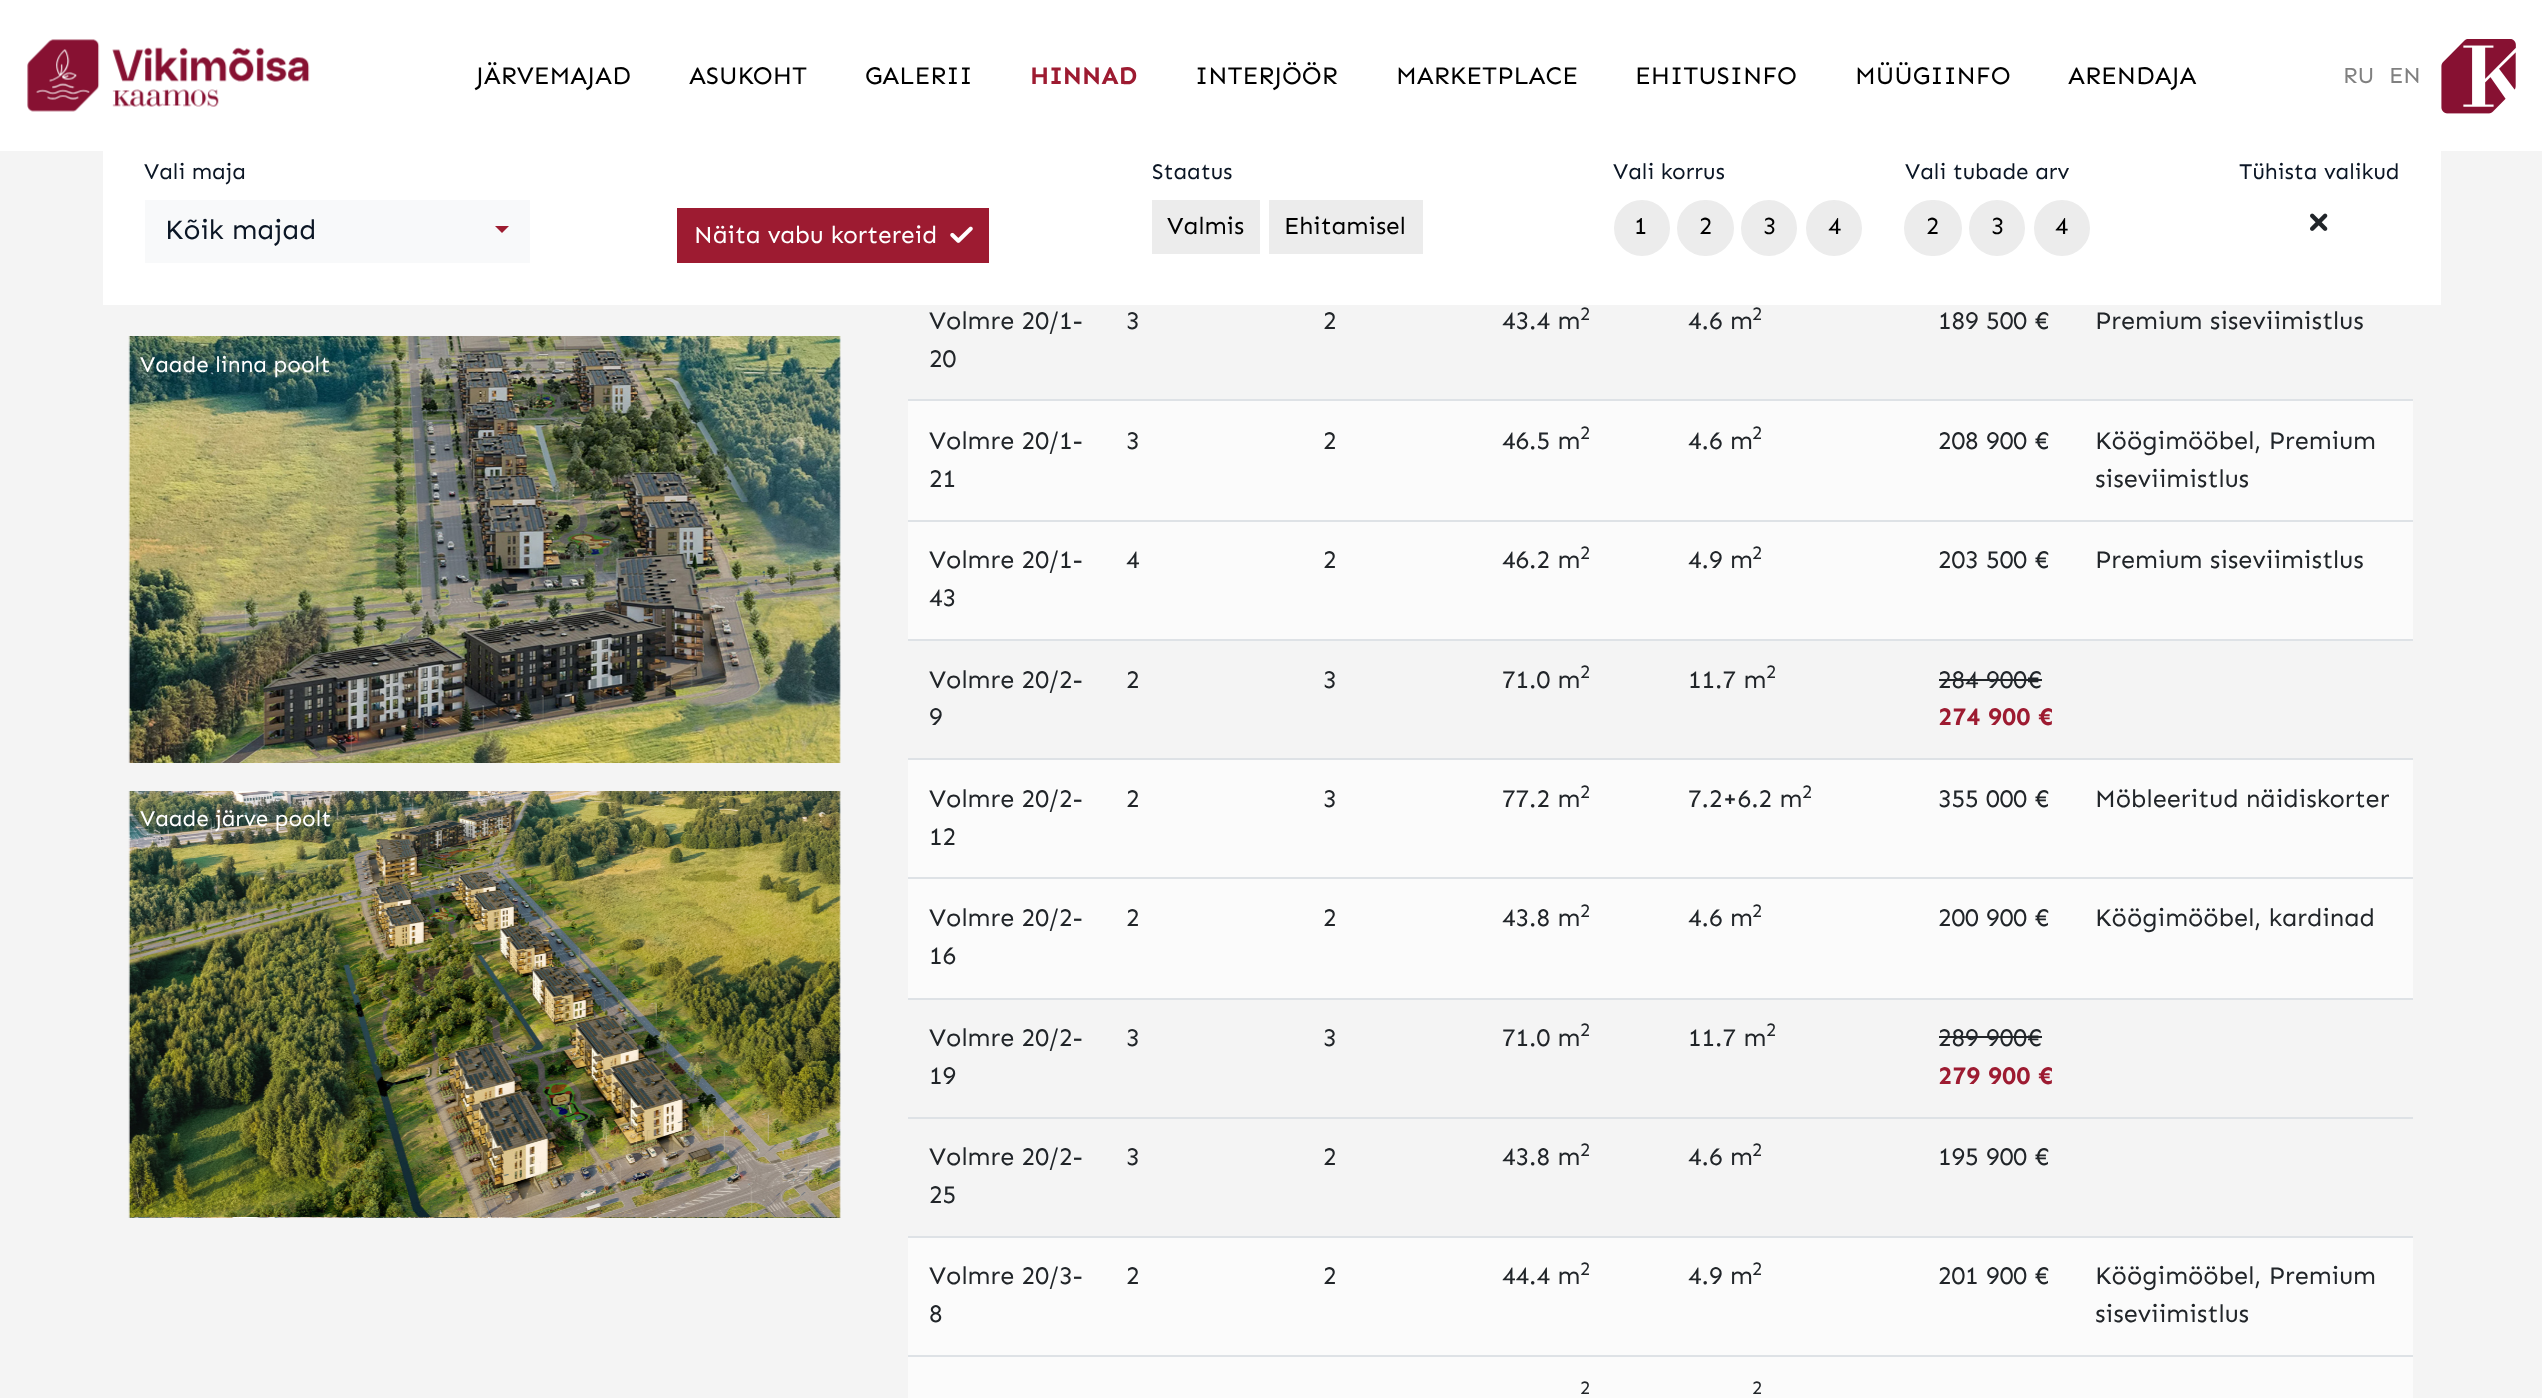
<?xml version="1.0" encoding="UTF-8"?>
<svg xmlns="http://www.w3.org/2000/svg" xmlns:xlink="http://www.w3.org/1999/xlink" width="2542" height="1398">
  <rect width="100%" height="100%" fill="#f4f4f4" />
  <rect width="2542" height="151" fill="#ffffff" />
  <image x="27" y="39" width="283" height="73" xlink:href="image1.png" />
  <image x="2441" y="39" width="75" height="75" xlink:href="image2.png" />
  <rect x="103" y="151" width="2338" height="154" fill="#ffffff" />
  <rect x="145" y="200" width="385" height="63" fill="#f8f9fa" />
  <path d="M 495 226 h 14 l -7 7 z" fill="#9d1c30" />
  <rect x="677" y="208" width="312" height="55" fill="#9d1b31" />
  <image x="950" y="226" width="23" height="17" xlink:href="image3.png" />
  <rect x="1152" y="200" width="108" height="54" fill="#ececec" />
  <rect x="1269" y="200" width="154" height="54" fill="#ececec" />
  <circle cx="1642" cy="228" r="27" fill="#ececec" stroke="#ececec" stroke-width="2" />
  <rect x="1678" y="201" width="55" height="54" rx="27" fill="#ececec" stroke="#ececec" stroke-width="2" />
  <circle cx="1769" cy="228" r="27" fill="#ececec" stroke="#ececec" stroke-width="2" />
  <circle cx="1834" cy="228" r="27" fill="#ececec" stroke="#ececec" stroke-width="2" />
  <rect x="1905" y="201" width="56" height="54" rx="27" fill="#ececec" stroke="#ececec" stroke-width="2" />
  <circle cx="1997" cy="228" r="27" fill="#ececec" stroke="#ececec" stroke-width="2" />
  <circle cx="2062" cy="228" r="27" fill="#ececec" stroke="#ececec" stroke-width="2" />
  <image x="2310" y="213" width="18" height="18" xlink:href="image4.png" />
  <image x="128" y="336" width="713" height="427" xlink:href="image5.png" />
  <image x="128" y="791" width="713" height="427" xlink:href="image6.png" />
  <rect x="908" y="401" width="1505" height="119" fill="#fbfbfb" />
  <rect x="908" y="399" width="1505" height="2" fill="#dee2e6" />
  <rect x="908" y="522" width="1505" height="117" fill="#fbfbfb" />
  <rect x="908" y="520" width="1505" height="2" fill="#dee2e6" />
  <rect x="908" y="639" width="1505" height="2" fill="#dee2e6" />
  <rect x="1939" y="679" width="103" height="2" fill="#212529" />
  <rect x="908" y="760" width="1505" height="117" fill="#fbfbfb" />
  <rect x="908" y="758" width="1505" height="2" fill="#dee2e6" />
  <rect x="908" y="879" width="1505" height="119" fill="#fbfbfb" />
  <rect x="908" y="877" width="1505" height="2" fill="#dee2e6" />
  <rect x="908" y="998" width="1505" height="2" fill="#dee2e6" />
  <rect x="1939" y="1036" width="103" height="2" fill="#212529" />
  <rect x="908" y="1117" width="1505" height="2" fill="#dee2e6" />
  <rect x="908" y="1238" width="1505" height="117" fill="#fbfbfb" />
  <rect x="908" y="1236" width="1505" height="2" fill="#dee2e6" />
  <rect x="908" y="1357" width="1505" height="41" fill="#fbfbfb" />
  <rect x="908" y="1355" width="1505" height="2" fill="#dee2e6" />
  <text x="476" y="84" style="font-family: Sen; font-size: 25.25px; fill: #000000">JÄRVEMAJAD</text>
  <text x="689" y="84" style="font-family: Sen; font-size: 25.25px; fill: #000000">ASUKOHT</text>
  <text x="865" y="84" style="font-family: Sen; font-size: 25.25px; fill: #000000">GALERII</text>
  <text x="1030" y="84" style="font-family: Sen; font-size: 25.25px; font-weight: bold; fill: #9d1b31">HINNAD</text>
  <text x="1195" y="84" style="font-family: Sen; font-size: 25.25px; fill: #000000">INTERJÖÖR</text>
  <text x="1396" y="84" style="font-family: Sen; font-size: 25.25px; fill: #000000">MARKETPLACE</text>
  <text x="1635" y="84" style="font-family: Sen; font-size: 25.25px; fill: #000000">EHITUSINFO</text>
  <text x="1855" y="84" style="font-family: Sen; font-size: 25.25px; fill: #000000">MÜÜGIINFO</text>
  <text x="2068" y="84" style="font-family: Sen; font-size: 25.25px; fill: #000000">ARENDAJA</text>
  <text x="2343" y="83" style="font-family: Sen; font-size: 23px; fill: #808080">RU</text>
  <text x="2389" y="83" style="font-family: Sen; font-size: 23px; fill: #808080">EN</text>
  <text x="144" y="179" style="font-family: Sen; font-size: 22.5px; fill: #0b1625">Vali maja</text>
  <text x="165" y="239" style="font-family: Sen; font-size: 28px; fill: #0b1625">Kõik majad</text>
  <text x="694" y="243" style="font-family: Sen; font-size: 24.5px; fill: #ffffff">Näita vabu kortereid</text>
  <text x="1152" y="179" style="font-family: Sen; font-size: 22.5px; fill: #0b1625">Staatus</text>
  <text x="1167" y="234" style="font-family: Sen; font-size: 24.5px; fill: #000000">Valmis</text>
  <text x="1284" y="234" style="font-family: Sen; font-size: 24.5px; fill: #000000">Ehitamisel</text>
  <text x="1613" y="179" style="font-family: Sen; font-size: 22.5px; fill: #0b1625">Vali korrus</text>
  <text x="1634" y="234" style="font-family: Sen; font-size: 24.5px; fill: #000000">1</text>
  <text x="1699" y="234" style="font-family: Sen; font-size: 24.5px; fill: #000000">2</text>
  <text x="1763" y="234" style="font-family: Sen; font-size: 24.5px; fill: #000000">3</text>
  <text x="1828" y="234" style="font-family: Sen; font-size: 24.5px; fill: #000000">4</text>
  <text x="1905" y="179" style="font-family: Sen; font-size: 22.5px; fill: #0b1625">Vali tubade arv</text>
  <text x="1926" y="234" style="font-family: Sen; font-size: 24.5px; fill: #000000">2</text>
  <text x="1991" y="234" style="font-family: Sen; font-size: 24.5px; fill: #000000">3</text>
  <text x="2055" y="234" style="font-family: Sen; font-size: 24.5px; fill: #000000">4</text>
  <text x="2239" y="179" style="font-family: Sen; font-size: 22.5px; fill: #0b1625">Tühista valikud</text>
  <text x="140" y="372" style="font-family: Sen; font-size: 22.5px; fill: #ffffff">Vaade linna poolt</text>
  <text x="140" y="826" style="font-family: Sen; font-size: 22.5px; fill: #ffffff">Vaade järve poolt</text>
  <text x="929" y="329" style="font-family: Sen; font-size: 25.25px; fill: #212529">Volmre 20/1-</text>
  <text x="929" y="367" style="font-family: Sen; font-size: 25.25px; fill: #212529">20</text>
  <text x="1126" y="329" style="font-family: Sen; font-size: 25.25px; fill: #212529">3</text>
  <text x="1323" y="329" style="font-family: Sen; font-size: 25.25px; fill: #212529">2</text>
  <text x="1502" y="329" style="font-family: Sen; font-size: 25.25px; fill: #212529">43.4 m</text>
  <text x="1580" y="320" style="font-family: Sen; font-size: 19px; fill: #212529">2</text>
  <text x="1688" y="329" style="font-family: Sen; font-size: 25.25px; fill: #212529">4.6 m</text>
  <text x="1752" y="320" style="font-family: Sen; font-size: 19px; fill: #212529">2</text>
  <text x="1938" y="329" style="font-family: Sen; font-size: 25.25px; fill: #212529">189 500 €</text>
  <text x="2095" y="329" style="font-family: Sen; font-size: 25.25px; fill: #212529">Premium siseviimistlus</text>
  <text x="929" y="449" style="font-family: Sen; font-size: 25.25px; fill: #212529">Volmre 20/1-</text>
  <text x="929" y="487" style="font-family: Sen; font-size: 25.25px; fill: #212529">21</text>
  <text x="1126" y="449" style="font-family: Sen; font-size: 25.25px; fill: #212529">3</text>
  <text x="1323" y="449" style="font-family: Sen; font-size: 25.25px; fill: #212529">2</text>
  <text x="1502" y="449" style="font-family: Sen; font-size: 25.25px; fill: #212529">46.5 m</text>
  <text x="1580" y="439" style="font-family: Sen; font-size: 19px; fill: #212529">2</text>
  <text x="1688" y="449" style="font-family: Sen; font-size: 25.25px; fill: #212529">4.6 m</text>
  <text x="1752" y="439" style="font-family: Sen; font-size: 19px; fill: #212529">2</text>
  <text x="1938" y="449" style="font-family: Sen; font-size: 25.25px; fill: #212529">208 900 €</text>
  <text x="2095" y="449" style="font-family: Sen; font-size: 25.25px; fill: #212529">Köögimööbel, Premium</text>
  <text x="2095" y="487" style="font-family: Sen; font-size: 25.25px; fill: #212529">siseviimistlus</text>
  <text x="929" y="568" style="font-family: Sen; font-size: 25.25px; fill: #212529">Volmre 20/1-</text>
  <text x="929" y="606" style="font-family: Sen; font-size: 25.25px; fill: #212529">43</text>
  <text x="1126" y="568" style="font-family: Sen; font-size: 25.25px; fill: #212529">4</text>
  <text x="1323" y="568" style="font-family: Sen; font-size: 25.25px; fill: #212529">2</text>
  <text x="1502" y="568" style="font-family: Sen; font-size: 25.25px; fill: #212529">46.2 m</text>
  <text x="1580" y="559" style="font-family: Sen; font-size: 19px; fill: #212529">2</text>
  <text x="1688" y="568" style="font-family: Sen; font-size: 25.25px; fill: #212529">4.9 m</text>
  <text x="1752" y="559" style="font-family: Sen; font-size: 19px; fill: #212529">2</text>
  <text x="1938" y="568" style="font-family: Sen; font-size: 25.25px; fill: #212529">203 500 €</text>
  <text x="2095" y="568" style="font-family: Sen; font-size: 25.25px; fill: #212529">Premium siseviimistlus</text>
  <text x="929" y="688" style="font-family: Sen; font-size: 25.25px; fill: #212529">Volmre 20/2-</text>
  <text x="929" y="725" style="font-family: Sen; font-size: 25.25px; fill: #212529">9</text>
  <text x="1126" y="688" style="font-family: Sen; font-size: 25.25px; fill: #212529">2</text>
  <text x="1323" y="688" style="font-family: Sen; font-size: 25.25px; fill: #212529">3</text>
  <text x="1502" y="688" style="font-family: Sen; font-size: 25.25px; fill: #212529">71.0 m</text>
  <text x="1580" y="678" style="font-family: Sen; font-size: 19px; fill: #212529">2</text>
  <text x="1688" y="688" style="font-family: Sen; font-size: 25.25px; fill: #212529">11.7 m</text>
  <text x="1766" y="678" style="font-family: Sen; font-size: 19px; fill: #212529">2</text>
  <text x="1938" y="688" style="font-family: Sen; font-size: 25.25px; fill: #212529">284 900€</text>
  <text x="1938" y="725" style="font-family: Sen; font-size: 25.25px; font-weight: bold; fill: #9d1b31">274 900 €</text>
  <text x="929" y="807" style="font-family: Sen; font-size: 25.25px; fill: #212529">Volmre 20/2-</text>
  <text x="929" y="845" style="font-family: Sen; font-size: 25.25px; fill: #212529">12</text>
  <text x="1126" y="807" style="font-family: Sen; font-size: 25.25px; fill: #212529">2</text>
  <text x="1323" y="807" style="font-family: Sen; font-size: 25.25px; fill: #212529">3</text>
  <text x="1502" y="807" style="font-family: Sen; font-size: 25.25px; fill: #212529">77.2 m</text>
  <text x="1580" y="798" style="font-family: Sen; font-size: 19px; fill: #212529">2</text>
  <text x="1688" y="807" style="font-family: Sen; font-size: 25.25px; fill: #212529">7.2+6.2 m</text>
  <text x="1802" y="798" style="font-family: Sen; font-size: 19px; fill: #212529">2</text>
  <text x="1938" y="807" style="font-family: Sen; font-size: 25.25px; fill: #212529">355 000 €</text>
  <text x="2095" y="807" style="font-family: Sen; font-size: 25.25px; fill: #212529">Möbleeritud näidiskorter</text>
  <text x="929" y="926" style="font-family: Sen; font-size: 25.25px; fill: #212529">Volmre 20/2-</text>
  <text x="929" y="964" style="font-family: Sen; font-size: 25.25px; fill: #212529">16</text>
  <text x="1126" y="926" style="font-family: Sen; font-size: 25.25px; fill: #212529">2</text>
  <text x="1323" y="926" style="font-family: Sen; font-size: 25.25px; fill: #212529">2</text>
  <text x="1502" y="926" style="font-family: Sen; font-size: 25.25px; fill: #212529">43.8 m</text>
  <text x="1580" y="917" style="font-family: Sen; font-size: 19px; fill: #212529">2</text>
  <text x="1688" y="926" style="font-family: Sen; font-size: 25.25px; fill: #212529">4.6 m</text>
  <text x="1752" y="917" style="font-family: Sen; font-size: 19px; fill: #212529">2</text>
  <text x="1938" y="926" style="font-family: Sen; font-size: 25.25px; fill: #212529">200 900 €</text>
  <text x="2095" y="926" style="font-family: Sen; font-size: 25.25px; fill: #212529">Köögimööbel, kardinad</text>
  <text x="929" y="1046" style="font-family: Sen; font-size: 25.25px; fill: #212529">Volmre 20/2-</text>
  <text x="929" y="1084" style="font-family: Sen; font-size: 25.25px; fill: #212529">19</text>
  <text x="1126" y="1046" style="font-family: Sen; font-size: 25.25px; fill: #212529">3</text>
  <text x="1323" y="1046" style="font-family: Sen; font-size: 25.25px; fill: #212529">3</text>
  <text x="1502" y="1046" style="font-family: Sen; font-size: 25.25px; fill: #212529">71.0 m</text>
  <text x="1580" y="1036" style="font-family: Sen; font-size: 19px; fill: #212529">2</text>
  <text x="1688" y="1046" style="font-family: Sen; font-size: 25.25px; fill: #212529">11.7 m</text>
  <text x="1766" y="1036" style="font-family: Sen; font-size: 19px; fill: #212529">2</text>
  <text x="1938" y="1046" style="font-family: Sen; font-size: 25.25px; fill: #212529">289 900€</text>
  <text x="1938" y="1084" style="font-family: Sen; font-size: 25.25px; font-weight: bold; fill: #9d1b31">279 900 €</text>
  <text x="929" y="1165" style="font-family: Sen; font-size: 25.25px; fill: #212529">Volmre 20/2-</text>
  <text x="929" y="1203" style="font-family: Sen; font-size: 25.25px; fill: #212529">25</text>
  <text x="1126" y="1165" style="font-family: Sen; font-size: 25.25px; fill: #212529">3</text>
  <text x="1323" y="1165" style="font-family: Sen; font-size: 25.25px; fill: #212529">2</text>
  <text x="1502" y="1165" style="font-family: Sen; font-size: 25.25px; fill: #212529">43.8 m</text>
  <text x="1580" y="1156" style="font-family: Sen; font-size: 19px; fill: #212529">2</text>
  <text x="1688" y="1165" style="font-family: Sen; font-size: 25.25px; fill: #212529">4.6 m</text>
  <text x="1752" y="1156" style="font-family: Sen; font-size: 19px; fill: #212529">2</text>
  <text x="1938" y="1165" style="font-family: Sen; font-size: 25.25px; fill: #212529">195 900 €</text>
  <text x="929" y="1284" style="font-family: Sen; font-size: 25.25px; fill: #212529">Volmre 20/3-</text>
  <text x="929" y="1322" style="font-family: Sen; font-size: 25.25px; fill: #212529">8</text>
  <text x="1126" y="1284" style="font-family: Sen; font-size: 25.25px; fill: #212529">2</text>
  <text x="1323" y="1284" style="font-family: Sen; font-size: 25.25px; fill: #212529">2</text>
  <text x="1502" y="1284" style="font-family: Sen; font-size: 25.25px; fill: #212529">44.4 m</text>
  <text x="1580" y="1275" style="font-family: Sen; font-size: 19px; fill: #212529">2</text>
  <text x="1688" y="1284" style="font-family: Sen; font-size: 25.25px; fill: #212529">4.9 m</text>
  <text x="1752" y="1275" style="font-family: Sen; font-size: 19px; fill: #212529">2</text>
  <text x="1938" y="1284" style="font-family: Sen; font-size: 25.25px; fill: #212529">201 900 €</text>
  <text x="2095" y="1284" style="font-family: Sen; font-size: 25.25px; fill: #212529">Köögimööbel, Premium</text>
  <text x="2095" y="1322" style="font-family: Sen; font-size: 25.25px; fill: #212529">siseviimistlus</text>
  <text x="1580" y="1394" style="font-family: Sen; font-size: 19px; fill: #212529">2</text>
  <text x="1752" y="1394" style="font-family: Sen; font-size: 19px; fill: #212529">2</text>
</svg>
